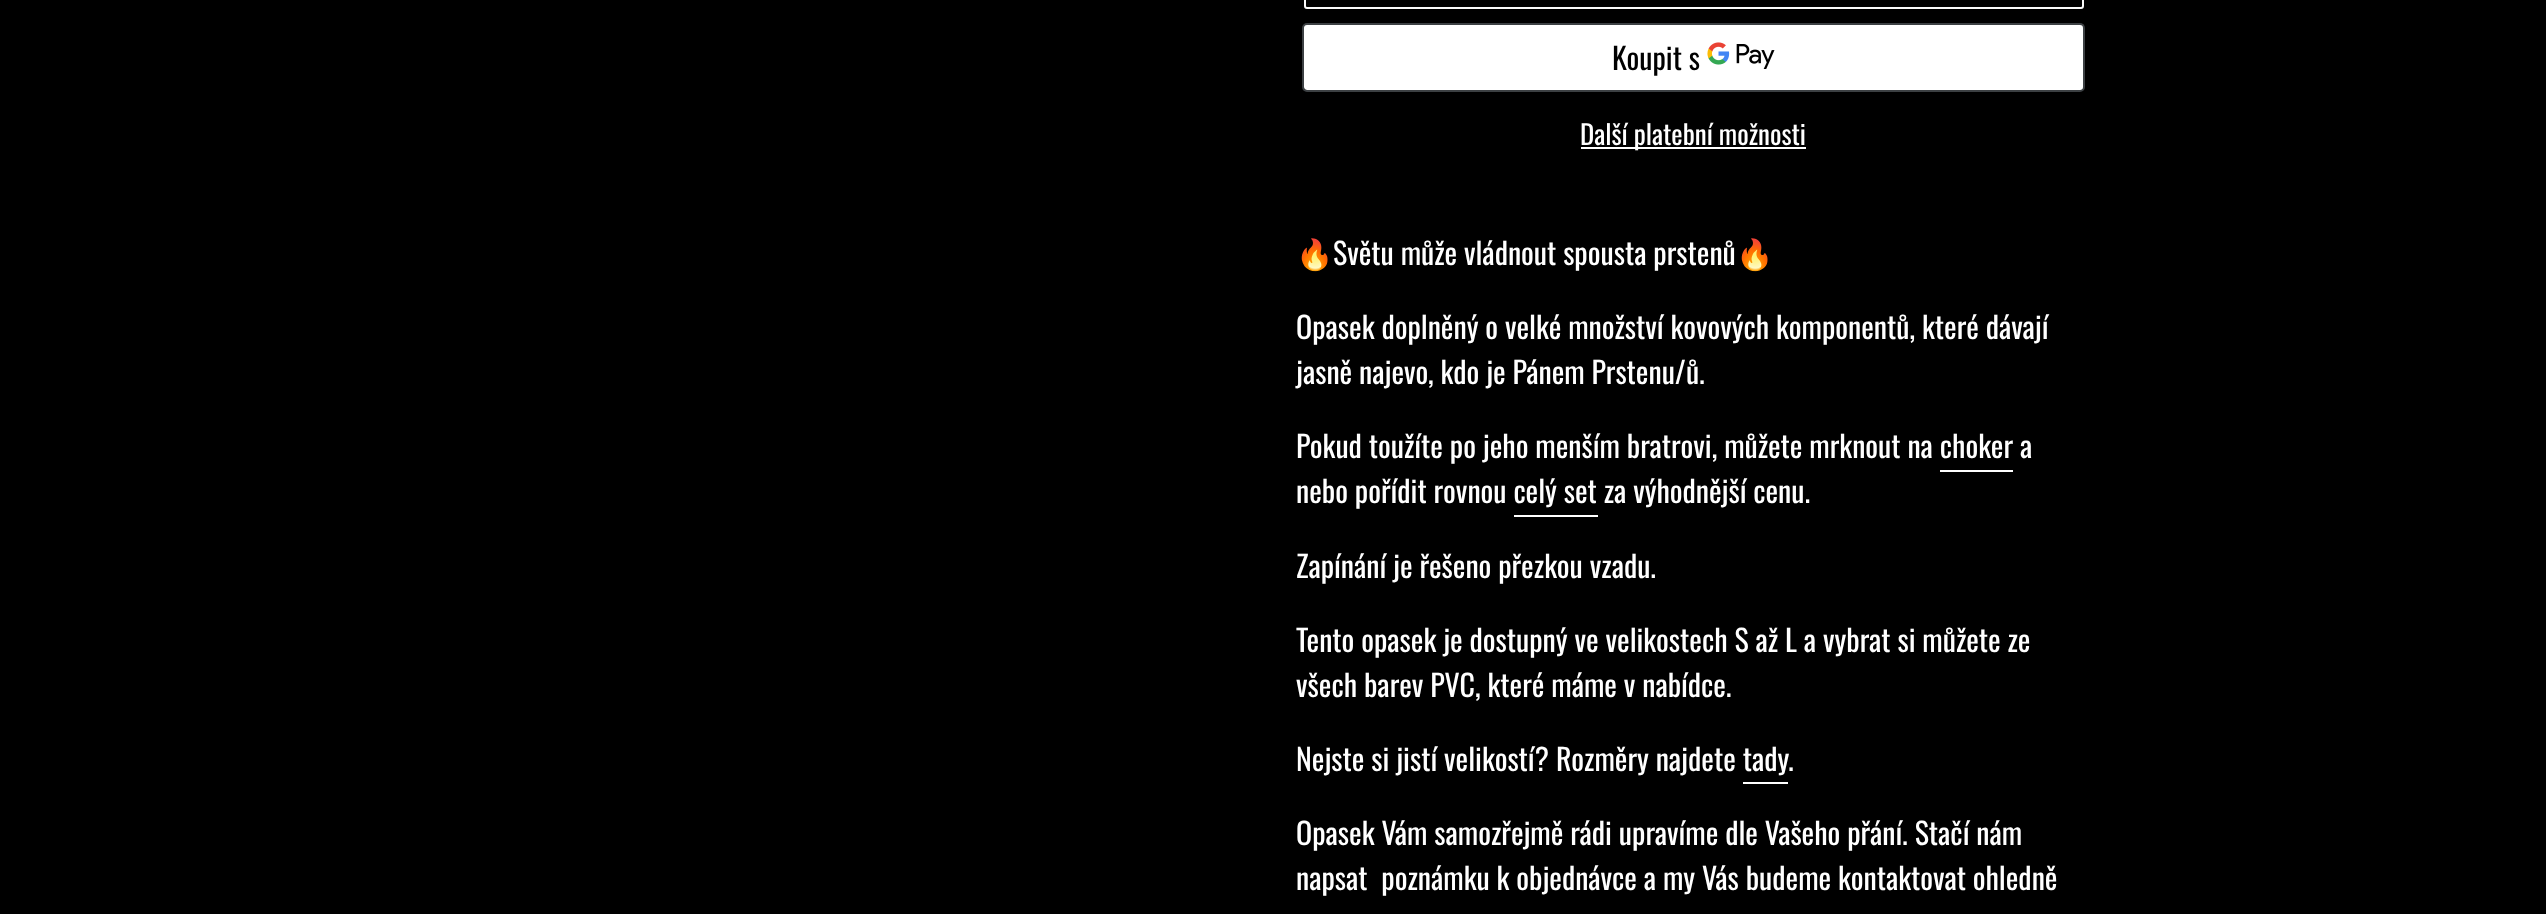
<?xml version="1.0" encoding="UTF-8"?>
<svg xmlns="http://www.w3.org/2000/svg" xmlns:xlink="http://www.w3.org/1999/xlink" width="2546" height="914">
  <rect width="100%" height="100%" fill="#000000" />
  <rect x="1305" y="-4" width="778" height="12" rx="2" fill="none" stroke="#fafafa" stroke-width="2" />
  <rect x="1304" y="24" width="780" height="66" rx="3" fill="#ffffff" />
  <rect x="1303" y="24" width="781" height="67" rx="4" fill="none" stroke="#3c4043" stroke-width="2" />
  <image x="1707" y="42" width="68" height="27" xlink:href="image1.png" />
  <rect x="1581" y="147" width="225" height="2" fill="#ffffff" />
  <rect x="1940" y="470" width="73" height="2" fill="#ffffff" />
  <rect x="1514" y="515" width="84" height="2" fill="#ffffff" />
  <rect x="1743" y="782" width="45" height="2" fill="#ffffff" />
  <text x="1612" y="70" style="font-family: Oswald; font-size: 30px; fill: #000000">Koupit s</text>
  <text x="1580" y="145" style="font-family: Oswald; font-size: 27px; fill: #ffffff">Další platební možnosti</text>
  <text x="1296" y="265" style="font-family: Noto Color Emoji; font-size: 30px; fill: #ffffff">🔥</text>
  <text x="1333" y="265" style="font-family: Oswald; font-size: 30px; fill: #ffffff">Světu může vládnout spousta prstenů</text>
  <text x="1736" y="265" style="font-family: Noto Color Emoji; font-size: 30px; fill: #ffffff">🔥</text>
  <text x="1296" y="339" style="font-family: Oswald; font-size: 30px; fill: #ffffff">Opasek doplněný o velké množství kovových komponentů, které dávají</text>
  <text x="1296" y="384" style="font-family: Oswald; font-size: 30px; fill: #ffffff">jasně najevo, kdo je Pánem Prstenu/ů.</text>
  <text x="1296" y="458" style="font-family: Oswald; font-size: 30px; fill: #ffffff">Pokud toužíte po jeho menším bratrovi, můžete mrknout na choker a</text>
  <text x="1296" y="503" style="font-family: Oswald; font-size: 30px; fill: #ffffff">nebo pořídit rovnou celý set za výhodnější cenu.</text>
  <text x="1296" y="578" style="font-family: Oswald; font-size: 30px; fill: #ffffff">Zapínání je řešeno přezkou vzadu.</text>
  <text x="1296" y="652" style="font-family: Oswald; font-size: 30px; fill: #ffffff">Tento opasek je dostupný ve velikostech S až L a vybrat si můžete ze</text>
  <text x="1296" y="697" style="font-family: Oswald; font-size: 30px; fill: #ffffff">všech barev PVC, které máme v nabídce.</text>
  <text x="1296" y="771" style="font-family: Oswald; font-size: 30px; fill: #ffffff">Nejste si jistí velikostí? Rozměry najdete tady</text>
  <text x="1788" y="771" style="font-family: Oswald; font-size: 30px; fill: #ffffff">.</text>
  <text x="1296" y="845" style="font-family: Oswald; font-size: 30px; fill: #ffffff">Opasek Vám samozřejmě rádi upravíme dle Vašeho přání. Stačí nám</text>
  <text x="1296" y="890" style="font-family: Oswald; font-size: 30px; fill: #ffffff" xml:space="preserve">napsat  poznámku k objednávce a my Vás budeme kontaktovat ohledně</text>
</svg>
